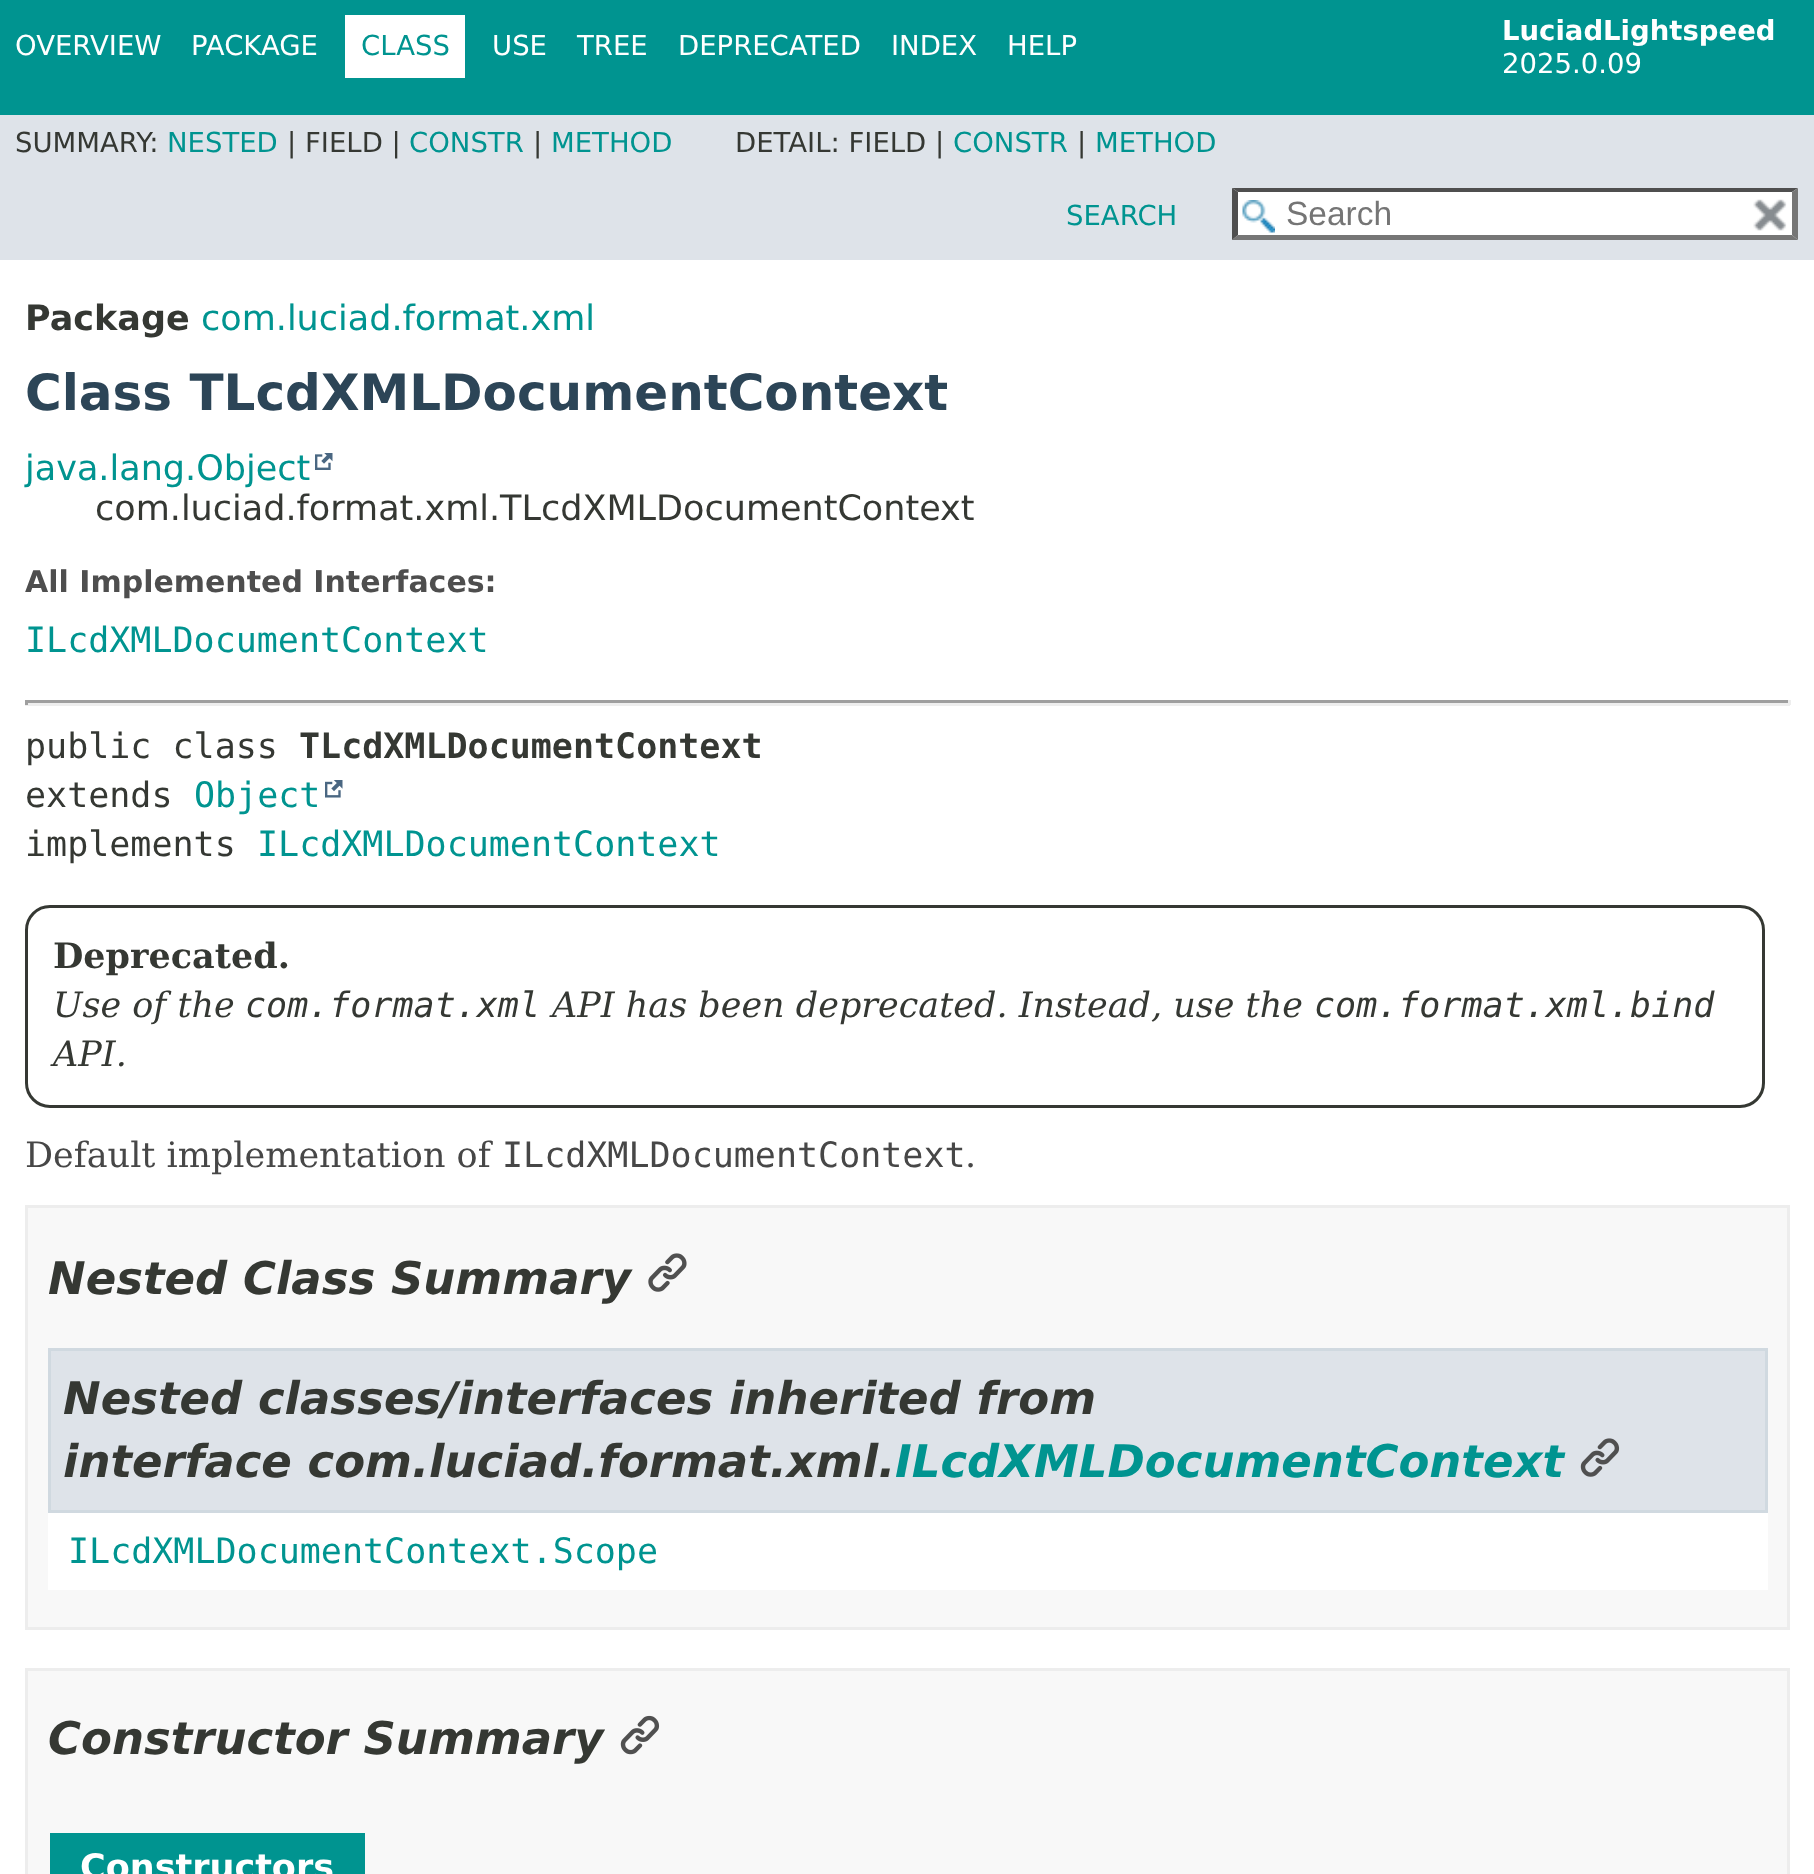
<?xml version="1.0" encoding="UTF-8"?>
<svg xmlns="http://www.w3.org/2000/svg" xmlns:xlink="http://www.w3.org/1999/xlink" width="1814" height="1874">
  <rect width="100%" height="100%" fill="#ffffff" />
  <rect width="1814" height="115" fill="#009490" />
  <rect x="345" y="15" width="120" height="63" fill="#ffffff" />
  <rect y="115" width="1814" height="145" fill="#dee3e9" />
  <rect x="1233" y="188" width="565" height="52" fill="#ffffff" />
  <image x="1242" y="200" width="33" height="33" xlink:href="image1.png" />
  <path d="M 1232 188 h 566 l -6 4 h -554 z" fill="#4f4f4f" />
  <path d="M 1798 188 v 52 l -6 -5 v -43 z" fill="#767676" />
  <path d="M 1798 240 h -566 l 6 -5 h 554 z" fill="#767676" />
  <path d="M 1232 240 v -52 l 6 4 v 43 z" fill="#4f4f4f" />
  <image x="1753" y="199" width="34" height="32" xlink:href="image2.png" />
  <image x="315" y="453" width="18" height="17" xlink:href="image3.png" />
  <rect x="25" y="700" width="1765" height="3" fill="#9f9f9f" />
  <rect x="1788" y="700" width="3" height="5" fill="#eeeeee" />
  <rect x="25" y="703" width="1765" height="3" fill="#eeeeee" />
  <rect x="25" y="700" width="3" height="5" fill="#9f9f9f" />
  <image x="325" y="780" width="18" height="18" xlink:href="image4.png" />
  <rect x="26.5" y="906.5" width="1737" height="200" rx="23.5" fill="none" stroke="#353833" stroke-width="3" />
  <rect x="26.5" y="1206.5" width="1762" height="422" fill="#f8f8f8" stroke="#ededed" stroke-width="3" />
  <image x="648" y="1253" width="39" height="39" xlink:href="image5.png" />
  <rect x="48" y="1513" width="1720" height="77" fill="#ffffff" />
  <rect x="49.5" y="1349.5" width="1717" height="162" fill="#dee3e9" stroke="#d0d9e0" stroke-width="3" />
  <image x="1580" y="1438" width="40" height="39" xlink:href="image6.png" />
  <rect x="26.5" y="1669.5" width="1762" height="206" fill="#f8f8f8" stroke="#ededed" stroke-width="3" />
  <image x="620" y="1715" width="40" height="40" xlink:href="image7.png" />
  <rect x="50" y="1833" width="315" height="41" fill="#009490" />
  <text x="15" y="55" style="font-family: DejaVu Sans; font-size: 27.5px; fill: #ffffff">OVERVIEW</text>
  <text x="191" y="55" style="font-family: DejaVu Sans; font-size: 27.5px; fill: #ffffff">PACKAGE</text>
  <text x="361" y="55" style="font-family: DejaVu Sans; font-size: 27.5px; fill: #009490">CLASS</text>
  <text x="492" y="55" style="font-family: DejaVu Sans; font-size: 27.5px; fill: #ffffff">USE</text>
  <text x="577" y="55" style="font-family: DejaVu Sans; font-size: 27.5px; fill: #ffffff">TREE</text>
  <text x="678" y="55" style="font-family: DejaVu Sans; font-size: 27.5px; fill: #ffffff">DEPRECATED</text>
  <text x="891" y="55" style="font-family: DejaVu Sans; font-size: 27.5px; fill: #ffffff">INDEX</text>
  <text x="1007" y="55" style="font-family: DejaVu Sans; font-size: 27.5px; fill: #ffffff">HELP</text>
  <text x="1502" y="40" style="font-family: DejaVu Sans; font-size: 27.5px; font-weight: bold; fill: #ffffff">LuciadLightspeed</text>
  <text x="1502" y="73" style="font-family: DejaVu Sans; font-size: 27.5px; fill: #ffffff">2025.0.09</text>
  <text x="15" y="152" style="font-family: DejaVu Sans; font-size: 27.5px; fill: #353833">SUMMARY:</text>
  <text x="167" y="152" style="font-family: DejaVu Sans; font-size: 27.5px; fill: #009490">NESTED</text>
  <text x="287" y="152" style="font-family: DejaVu Sans; font-size: 27.5px; fill: #353833">| FIELD |</text>
  <text x="409" y="152" style="font-family: DejaVu Sans; font-size: 27.5px; fill: #009490">CONSTR</text>
  <text x="533" y="152" style="font-family: DejaVu Sans; font-size: 27.5px; fill: #353833">|</text>
  <text x="551" y="152" style="font-family: DejaVu Sans; font-size: 27.5px; fill: #009490">METHOD</text>
  <text x="735" y="152" style="font-family: DejaVu Sans; font-size: 27.5px; fill: #353833">DETAIL: FIELD |</text>
  <text x="953" y="152" style="font-family: DejaVu Sans; font-size: 27.5px; fill: #009490">CONSTR</text>
  <text x="1077" y="152" style="font-family: DejaVu Sans; font-size: 27.5px; fill: #353833">|</text>
  <text x="1095" y="152" style="font-family: DejaVu Sans; font-size: 27.5px; fill: #009490">METHOD</text>
  <text x="1066" y="225" style="font-family: DejaVu Sans; font-size: 27.5px; fill: #009490">SEARCH</text>
  <text x="1286" y="225" style="font-family: Liberation Sans; font-size: 33.5px; fill: #757575">Search</text>
  <text x="25" y="330" style="font-family: DejaVu Sans; font-size: 35px; font-weight: bold; fill: #353833">Package</text>
  <text x="201" y="330" style="font-family: DejaVu Sans; font-size: 35px; fill: #009490">com.luciad.format.xml</text>
  <text x="25" y="410" style="font-family: DejaVu Sans; font-size: 50px; font-weight: bold; fill: #2c4557">Class TLcdXMLDocumentContext</text>
  <text x="25" y="480" style="font-family: DejaVu Sans; font-size: 35px; fill: #009490">java.lang.Object</text>
  <text x="95" y="520" style="font-family: DejaVu Sans; font-size: 35px; fill: #353833">com.luciad.format.xml.TLcdXMLDocumentContext</text>
  <text x="25" y="592" style="font-family: DejaVu Sans; font-size: 30px; font-weight: bold; fill: #4e4e4e">All Implemented Interfaces:</text>
  <text x="25" y="652" style="font-family: DejaVu Sans Mono; font-size: 35px; fill: #009490">ILcdXMLDocumentContext</text>
  <text x="25" y="758" style="font-family: DejaVu Sans Mono; font-size: 35px; fill: #353833">public class</text>
  <text x="299" y="758" style="font-family: DejaVu Sans Mono; font-size: 35px; font-weight: bold; fill: #353833">TLcdXMLDocumentContext</text>
  <text x="25" y="807" style="font-family: DejaVu Sans Mono; font-size: 35px; fill: #353833">extends</text>
  <text x="194" y="807" style="font-family: DejaVu Sans Mono; font-size: 35px; fill: #009490">Object</text>
  <text x="25" y="856" style="font-family: DejaVu Sans Mono; font-size: 35px; fill: #353833">implements</text>
  <text x="257" y="856" style="font-family: DejaVu Sans Mono; font-size: 35px; fill: #009490">ILcdXMLDocumentContext</text>
  <text x="53" y="968" style="font-family: DejaVu Serif; font-size: 35px; font-weight: bold; fill: #353833">Deprecated.</text>
  <text x="53" y="1017" style="font-family: DejaVu Serif; font-size: 35px; font-style: italic; fill: #353833">Use of the</text>
  <text x="245" y="1017" style="font-family: DejaVu Sans Mono; font-size: 35px; font-style: italic; fill: #353833">com.format.xml</text>
  <text x="552" y="1017" style="font-family: DejaVu Serif; font-size: 35px; font-style: italic; fill: #353833">API has been deprecated. Instead, use the</text>
  <text x="1314" y="1017" style="font-family: DejaVu Sans Mono; font-size: 35px; font-style: italic; fill: #353833">com.format.xml.bind</text>
  <text x="53" y="1066" style="font-family: DejaVu Serif; font-size: 35px; font-style: italic; fill: #353833">API.</text>
  <text x="25" y="1167" style="font-family: DejaVu Serif; font-size: 35px; fill: #474747">Default implementation of</text>
  <text x="502" y="1167" style="font-family: DejaVu Sans Mono; font-size: 35px; fill: #474747">ILcdXMLDocumentContext</text>
  <text x="965" y="1167" style="font-family: DejaVu Serif; font-size: 35px; fill: #474747">.</text>
  <text x="48" y="1294" style="font-family: DejaVu Sans; font-size: 45px; font-weight: bold; font-style: italic; fill: #353833">Nested Class Summary</text>
  <text x="63" y="1414" style="font-family: DejaVu Sans; font-size: 45px; font-weight: bold; font-style: italic; fill: #353833">Nested classes/interfaces inherited from</text>
  <text x="63" y="1477" style="font-family: DejaVu Sans; font-size: 45px; font-weight: bold; font-style: italic; fill: #353833">interface com.luciad.format.xml.</text>
  <text x="895" y="1477" style="font-family: DejaVu Sans; font-size: 45px; font-weight: bold; font-style: italic; fill: #009490">ILcdXMLDocumentContext</text>
  <text x="68" y="1563" style="font-family: DejaVu Sans Mono; font-size: 35px; fill: #009490">ILcdXMLDocumentContext.Scope</text>
  <text x="48" y="1754" style="font-family: DejaVu Sans; font-size: 45px; font-weight: bold; font-style: italic; fill: #353833">Constructor Summary</text>
  <text x="80" y="1879" style="font-family: DejaVu Sans; font-size: 35px; font-weight: bold; fill: #ffffff">Constructors</text>
</svg>
